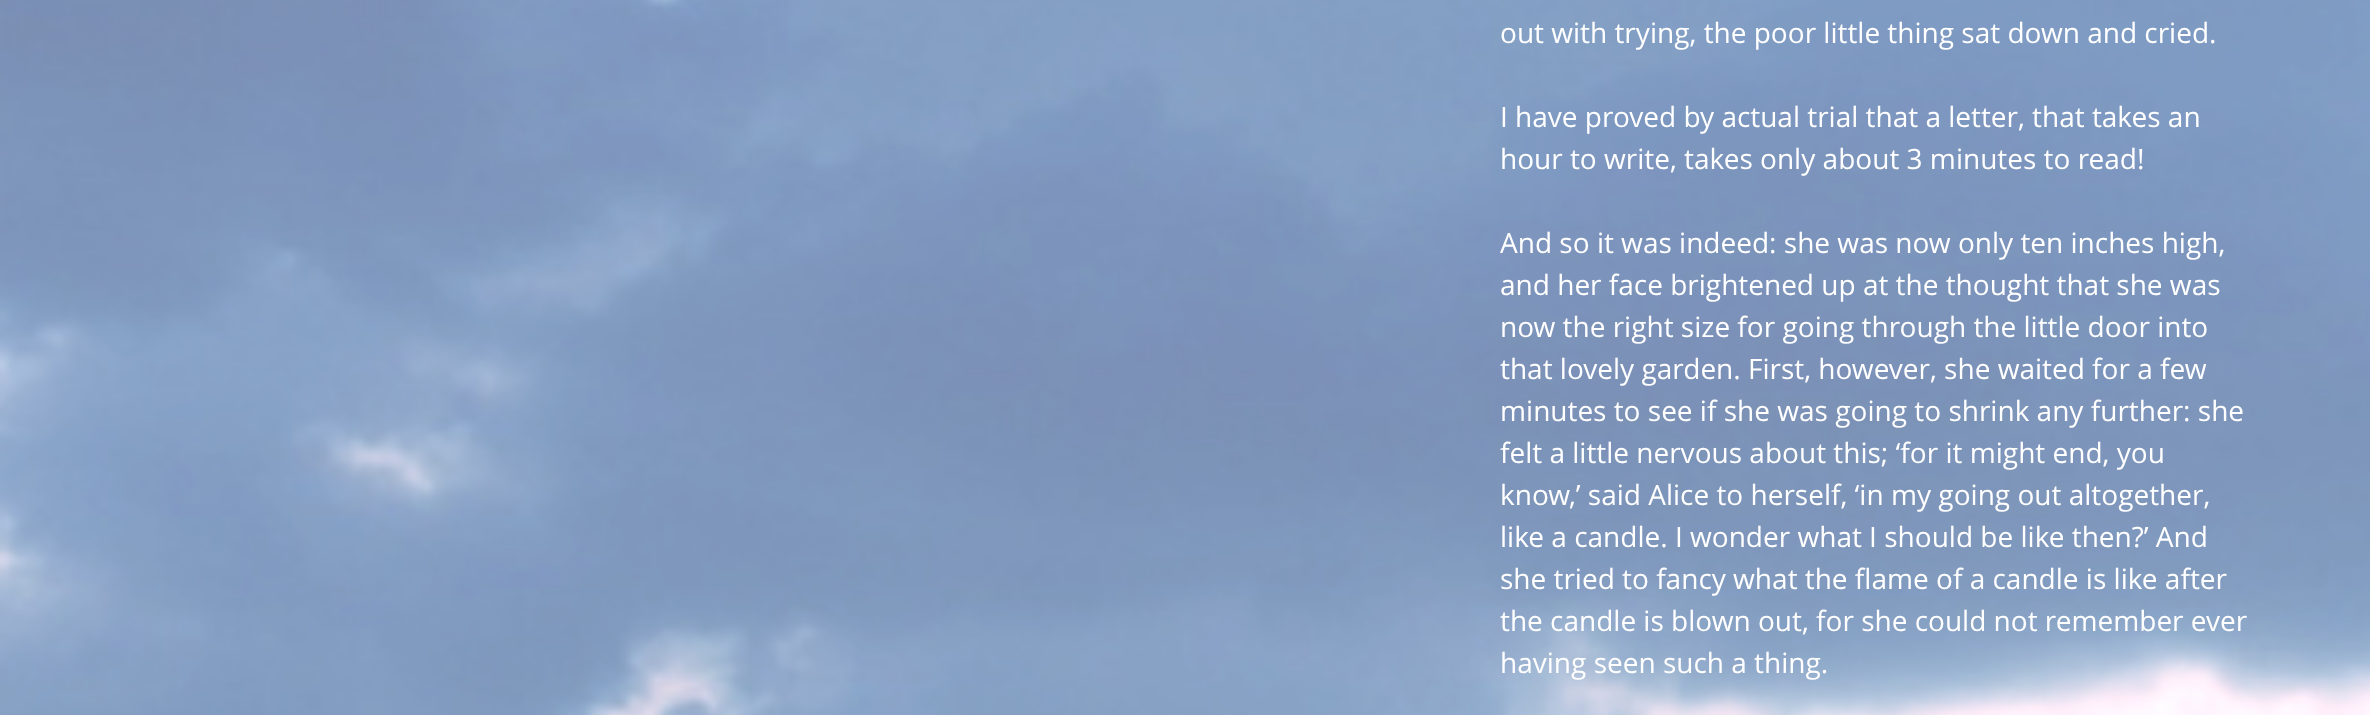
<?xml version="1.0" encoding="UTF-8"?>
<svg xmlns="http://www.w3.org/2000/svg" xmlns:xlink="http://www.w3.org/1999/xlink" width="2370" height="715">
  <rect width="100%" height="100%" fill="#ffffff" />
  <image x="0" y="0" width="2370" height="715" xlink:href="image1.png" />
  <text x="1500" y="43" style="font-family: Open Sans; font-size: 28px; fill: #ffffff">out with trying, the poor little thing sat down and cried.</text>
  <text x="1500" y="127" style="font-family: Open Sans; font-size: 28px; fill: #ffffff">I have proved by actual trial that a letter, that takes an</text>
  <text x="1500" y="169" style="font-family: Open Sans; font-size: 28px; fill: #ffffff">hour to write, takes only about 3 minutes to read!</text>
  <text x="1500" y="253" style="font-family: Open Sans; font-size: 28px; fill: #ffffff">And so it was indeed: she was now only ten inches high,</text>
  <text x="1500" y="295" style="font-family: Open Sans; font-size: 28px; fill: #ffffff">and her face brightened up at the thought that she was</text>
  <text x="1500" y="337" style="font-family: Open Sans; font-size: 28px; fill: #ffffff">now the right size for going through the little door into</text>
  <text x="1500" y="379" style="font-family: Open Sans; font-size: 28px; fill: #ffffff">that lovely garden. First, however, she waited for a few</text>
  <text x="1500" y="421" style="font-family: Open Sans; font-size: 28px; fill: #ffffff">minutes to see if she was going to shrink any further: she</text>
  <text x="1500" y="463" style="font-family: Open Sans; font-size: 28px; fill: #ffffff">felt a little nervous about this; ‘for it might end, you</text>
  <text x="1500" y="505" style="font-family: Open Sans; font-size: 28px; fill: #ffffff">know,’ said Alice to herself, ‘in my going out altogether,</text>
  <text x="1500" y="547" style="font-family: Open Sans; font-size: 28px; fill: #ffffff">like a candle. I wonder what I should be like then?’ And</text>
  <text x="1500" y="589" style="font-family: Open Sans; font-size: 28px; fill: #ffffff">she tried to fancy what the flame of a candle is like after</text>
  <text x="1500" y="631" style="font-family: Open Sans; font-size: 28px; fill: #ffffff">the candle is blown out, for she could not remember ever</text>
  <text x="1500" y="673" style="font-family: Open Sans; font-size: 28px; fill: #ffffff">having seen such a thing.</text>
</svg>
